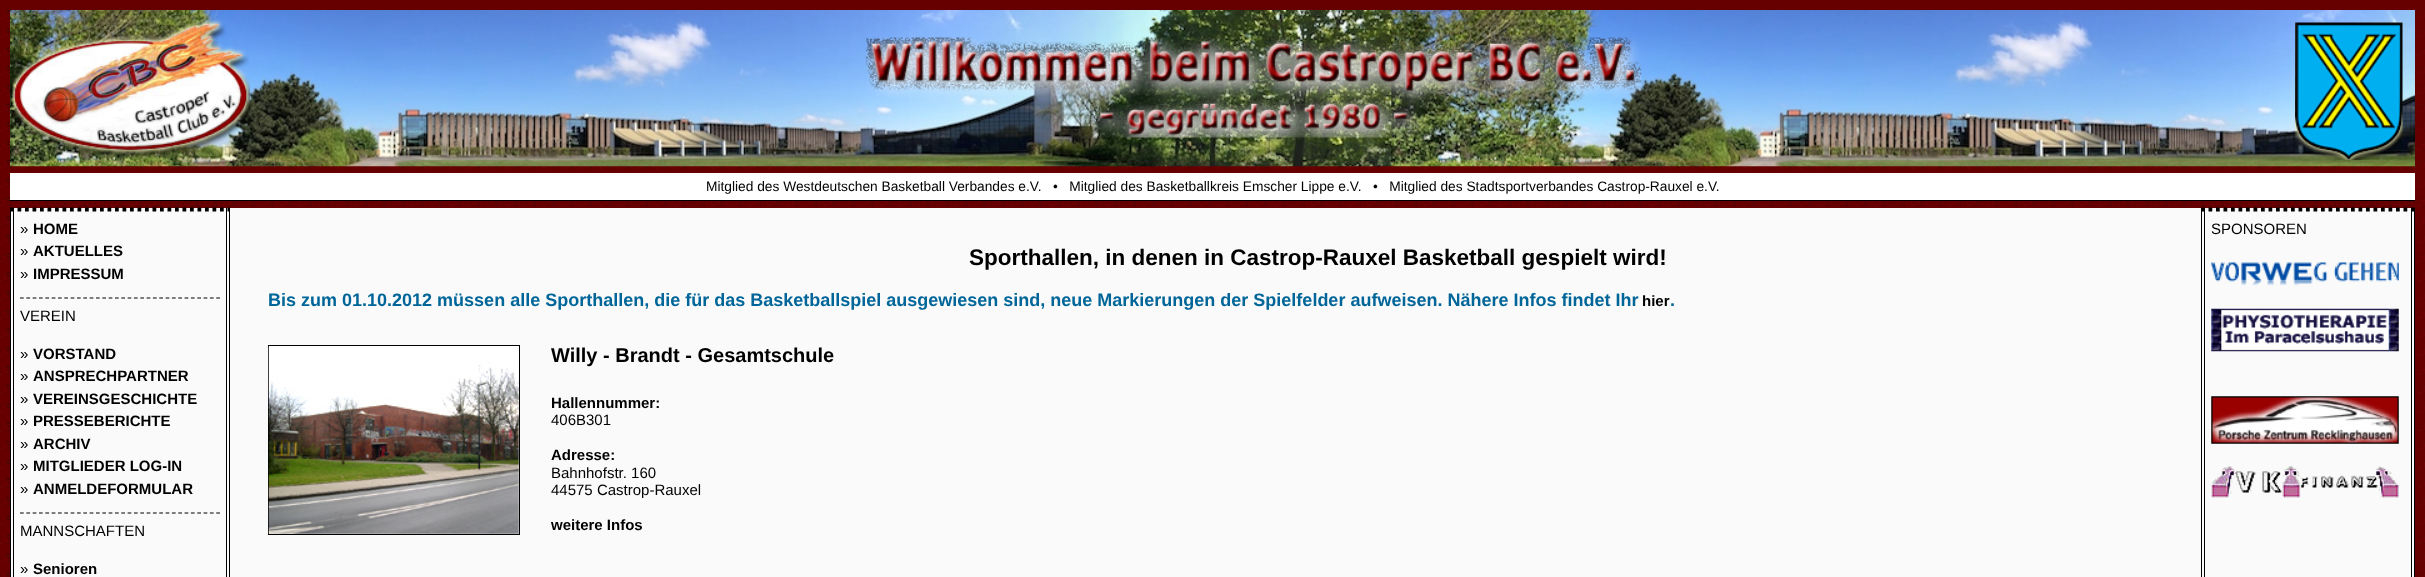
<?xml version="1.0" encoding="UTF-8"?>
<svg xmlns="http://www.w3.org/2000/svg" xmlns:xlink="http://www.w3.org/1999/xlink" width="2425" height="577">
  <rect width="100%" height="100%" fill="#660000" />
  <image x="0" y="10" width="2425" height="567" xlink:href="image1.png" />
  <image x="10" y="10" width="2405" height="157" xlink:href="image2.png" />
  <image x="12" y="19" width="238" height="141" xlink:href="image3.png" />
  <image x="866" y="37" width="776" height="101" xlink:href="image4.png" />
  <image x="2295" y="22" width="108" height="138" xlink:href="image5.png" />
  <rect x="10" y="173" width="2405" height="27" fill="#ffffff" />
  <rect x="10" y="200" width="2405" height="1" fill="#000000" />
  <rect x="11" y="208" width="2403" height="369" fill="#fafafa" />
  <path d="M 10 209.5 h 220" fill="none" stroke="#000000" stroke-width="3.8" stroke-dasharray="3.75 3.75" />
  <rect x="226" y="208" width="1" height="369" fill="#000000" />
  <rect x="229" y="208" width="1" height="369" fill="#000000" />
  <rect x="10" y="208" width="1" height="369" fill="#000000" />
  <rect x="13" y="208" width="1" height="369" fill="#000000" />
  <path d="M 20 298 h 200" fill="none" stroke="#000000" stroke-width="1.2" stroke-dasharray="3.75 2.58" />
  <path d="M 20 513 h 200" fill="none" stroke="#000000" stroke-width="1.2" stroke-dasharray="3.75 2.58" />
  <path d="M 2201 209.5 h 214" fill="none" stroke="#000000" stroke-width="3.8" stroke-dasharray="3.75 3.75" />
  <rect x="2411" y="208" width="1" height="369" fill="#000000" />
  <rect x="2414" y="208" width="1" height="369" fill="#000000" />
  <rect x="2201" y="208" width="1" height="369" fill="#000000" />
  <rect x="2204" y="208" width="1" height="369" fill="#000000" />
  <image x="2211" y="262" width="188" height="24" xlink:href="image6.png" />
  <image x="2211" y="308" width="188" height="44" xlink:href="image7.png" />
  <image x="2211" y="396" width="188" height="48" xlink:href="image8.png" />
  <image x="2211" y="466" width="188" height="32" xlink:href="image9.png" />
  <rect x="268.5" y="345.5" width="251" height="189" fill="none" stroke="#000000" />
  <image x="268" y="346" width="251" height="188" xlink:href="image10.png" />
  <text x="706" y="191" style="font-family: Liberation Sans; font-size: 13.75px; fill: #000000" xml:space="preserve">Mitglied des Westdeutschen Basketball Verbandes e.V.   •   Mitglied des Basketballkreis Emscher Lippe e.V.   •   Mitglied des Stadtsportverbandes Castrop-Rauxel e.V.</text>
  <text x="20" y="234" style="font-family: Liberation Sans; font-size: 15px; fill: #000000">»</text>
  <text x="33" y="234" style="font-family: Liberation Sans; font-size: 15px; font-weight: bold; fill: #000000">HOME</text>
  <text x="20" y="256" style="font-family: Liberation Sans; font-size: 15px; fill: #000000">»</text>
  <text x="33" y="256" style="font-family: Liberation Sans; font-size: 15px; font-weight: bold; fill: #000000">AKTUELLES</text>
  <text x="20" y="279" style="font-family: Liberation Sans; font-size: 15px; fill: #000000">»</text>
  <text x="33" y="279" style="font-family: Liberation Sans; font-size: 15px; font-weight: bold; fill: #000000">IMPRESSUM</text>
  <text x="20" y="321" style="font-family: Liberation Sans; font-size: 15px; fill: #000000">VEREIN</text>
  <text x="20" y="359" style="font-family: Liberation Sans; font-size: 15px; fill: #000000">»</text>
  <text x="33" y="359" style="font-family: Liberation Sans; font-size: 15px; font-weight: bold; fill: #000000">VORSTAND</text>
  <text x="20" y="381" style="font-family: Liberation Sans; font-size: 15px; fill: #000000">»</text>
  <text x="33" y="381" style="font-family: Liberation Sans; font-size: 15px; font-weight: bold; fill: #000000">ANSPRECHPARTNER</text>
  <text x="20" y="404" style="font-family: Liberation Sans; font-size: 15px; fill: #000000">»</text>
  <text x="33" y="404" style="font-family: Liberation Sans; font-size: 15px; font-weight: bold; fill: #000000">VEREINSGESCHICHTE</text>
  <text x="20" y="426" style="font-family: Liberation Sans; font-size: 15px; fill: #000000">»</text>
  <text x="33" y="426" style="font-family: Liberation Sans; font-size: 15px; font-weight: bold; fill: #000000">PRESSEBERICHTE</text>
  <text x="20" y="449" style="font-family: Liberation Sans; font-size: 15px; fill: #000000">»</text>
  <text x="33" y="449" style="font-family: Liberation Sans; font-size: 15px; font-weight: bold; fill: #000000">ARCHIV</text>
  <text x="20" y="471" style="font-family: Liberation Sans; font-size: 15px; fill: #000000">»</text>
  <text x="33" y="471" style="font-family: Liberation Sans; font-size: 15px; font-weight: bold; fill: #000000">MITGLIEDER LOG-IN</text>
  <text x="20" y="494" style="font-family: Liberation Sans; font-size: 15px; fill: #000000">»</text>
  <text x="33" y="494" style="font-family: Liberation Sans; font-size: 15px; font-weight: bold; fill: #000000">ANMELDEFORMULAR</text>
  <text x="20" y="536" style="font-family: Liberation Sans; font-size: 15px; fill: #000000">MANNSCHAFTEN</text>
  <text x="20" y="574" style="font-family: Liberation Sans; font-size: 15px; fill: #000000">»</text>
  <text x="33" y="574" style="font-family: Liberation Sans; font-size: 15px; font-weight: bold; fill: #000000">Senioren</text>
  <text x="2211" y="234" style="font-family: Liberation Sans; font-size: 15px; fill: #000000">SPONSOREN</text>
  <text x="969" y="265" style="font-family: Liberation Sans; font-size: 22.5px; font-weight: bold; fill: #000000">Sporthallen, in denen in Castrop-Rauxel Basketball gespielt wird!</text>
  <text x="268" y="306" style="font-family: Liberation Sans; font-size: 18px; font-weight: bold; fill: #006699">Bis zum 01.10.2012 müssen alle Sporthallen, die für das Basketballspiel ausgewiesen sind, neue Markierungen der Spielfelder aufweisen. Nähere Infos findet Ihr</text>
  <text x="1642" y="306" style="font-family: Liberation Sans; font-size: 15px; font-weight: bold; fill: #000000">hier</text>
  <text x="1670" y="306" style="font-family: Liberation Sans; font-size: 18px; font-weight: bold; fill: #006699">.</text>
  <text x="551" y="362" style="font-family: Liberation Sans; font-size: 20px; font-weight: bold; fill: #000000">Willy - Brandt - Gesamtschule</text>
  <text x="551" y="408" style="font-family: Liberation Sans; font-size: 15px; font-weight: bold; fill: #000000">Hallennummer:</text>
  <text x="551" y="425" style="font-family: Liberation Sans; font-size: 15px; fill: #000000">406B301</text>
  <text x="551" y="460" style="font-family: Liberation Sans; font-size: 15px; font-weight: bold; fill: #000000">Adresse:</text>
  <text x="551" y="478" style="font-family: Liberation Sans; font-size: 15px; fill: #000000">Bahnhofstr. 160</text>
  <text x="551" y="495" style="font-family: Liberation Sans; font-size: 15px; fill: #000000">44575 Castrop-Rauxel</text>
  <text x="551" y="530" style="font-family: Liberation Sans; font-size: 15px; font-weight: bold; fill: #000000">weitere Infos</text>
</svg>
